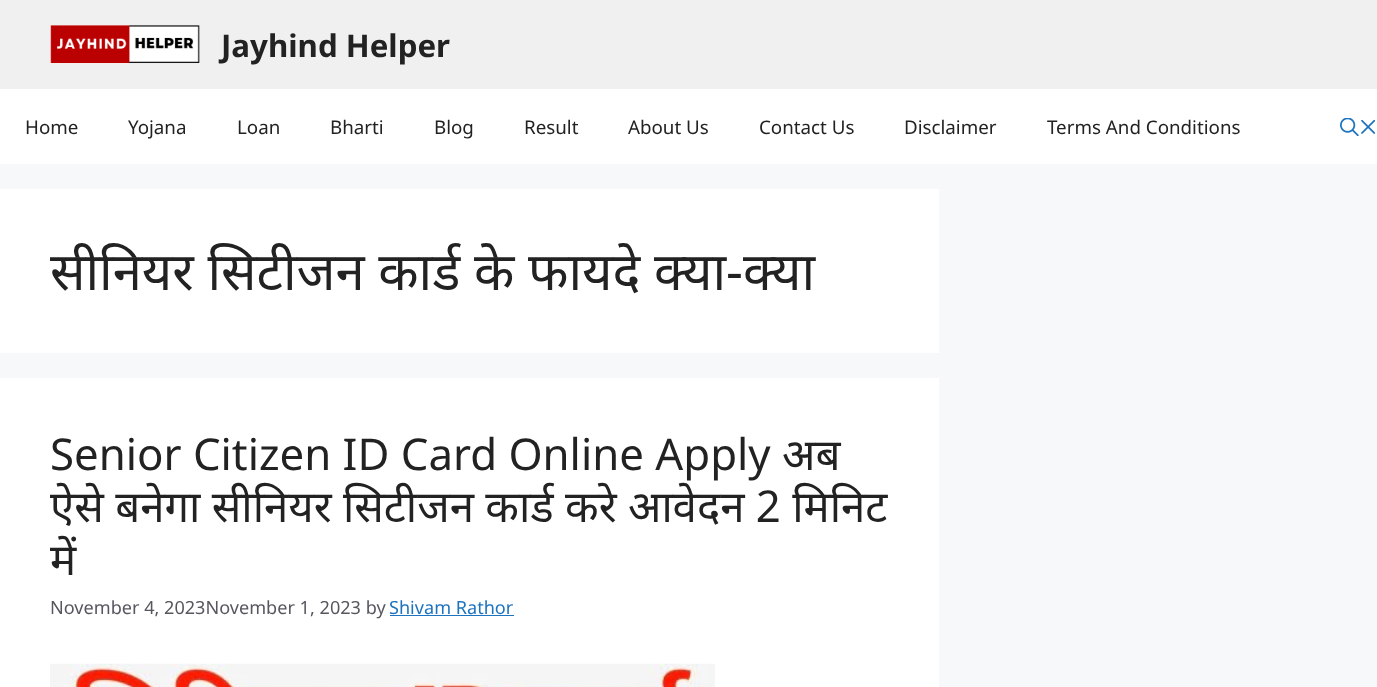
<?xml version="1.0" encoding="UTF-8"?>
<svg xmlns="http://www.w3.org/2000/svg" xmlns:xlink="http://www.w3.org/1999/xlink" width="1377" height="687">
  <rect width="100%" height="100%" fill="#f7f8f9" />
  <rect width="1377" height="89" fill="#f0f0f0" />
  <image x="50" y="25" width="150" height="39" xlink:href="image1.png" />
  <rect y="89" width="1377" height="75" fill="#ffffff" />
  <image x="1340" y="118" width="19" height="18" xlink:href="image2.png" />
  <image x="1361" y="119" width="15" height="15" xlink:href="image3.png" />
  <rect y="189" width="939" height="164" fill="#ffffff" />
  <rect y="378" width="939" height="309" fill="#ffffff" />
  <rect x="390" y="615" width="124" height="1" fill="#1e73be" />
  <image x="50" y="663" width="665" height="24" xlink:href="image4.png" />
  <text x="221" y="57" style="font-family: Noto Sans; font-size: 31.25px; font-weight: bold; fill: #222222">Jayhind Helper</text>
  <text x="25" y="134" style="font-family: Noto Sans; font-size: 18.75px; fill: #222222">Home</text>
  <text x="128" y="134" style="font-family: Noto Sans; font-size: 18.75px; fill: #222222">Yojana</text>
  <text x="237" y="134" style="font-family: Noto Sans; font-size: 18.75px; fill: #222222">Loan</text>
  <text x="330" y="134" style="font-family: Noto Sans; font-size: 18.75px; fill: #222222">Bharti</text>
  <text x="434" y="134" style="font-family: Noto Sans; font-size: 18.75px; fill: #222222">Blog</text>
  <text x="524" y="134" style="font-family: Noto Sans; font-size: 18.75px; fill: #222222">Result</text>
  <text x="628" y="134" style="font-family: Noto Sans; font-size: 18.75px; fill: #222222">About Us</text>
  <text x="759" y="134" style="font-family: Noto Sans; font-size: 18.75px; fill: #222222">Contact Us</text>
  <text x="904" y="134" style="font-family: Noto Sans; font-size: 18.75px; fill: #222222">Disclaimer</text>
  <text x="1047" y="134" style="font-family: Noto Sans; font-size: 18.75px; fill: #222222">Terms And Conditions</text>
  <text x="50" y="290" style="font-family: Noto Sans; font-size: 52.5px; fill: #222222">सीनियर सिटीजन कार्ड के फायदे क्या-क्या</text>
  <text x="50" y="470" style="font-family: Noto Sans; font-size: 43.75px; fill: #222222">Senior Citizen ID Card Online Apply अब</text>
  <text x="50" y="522" style="font-family: Noto Sans; font-size: 43.75px; fill: #222222">ऐसे बनेगा सीनियर सिटीजन कार्ड करे आवेदन 2 मिनिट</text>
  <text x="50" y="575" style="font-family: Noto Sans; font-size: 43.75px; fill: #222222">में</text>
  <text x="50" y="614" style="font-family: Noto Sans; font-size: 18.1px; fill: #575760">November 4, 2023November 1, 2023 by</text>
  <text x="389" y="614" style="font-family: Noto Sans; font-size: 18.1px; fill: #1e73be">Shivam Rathor</text>
</svg>
